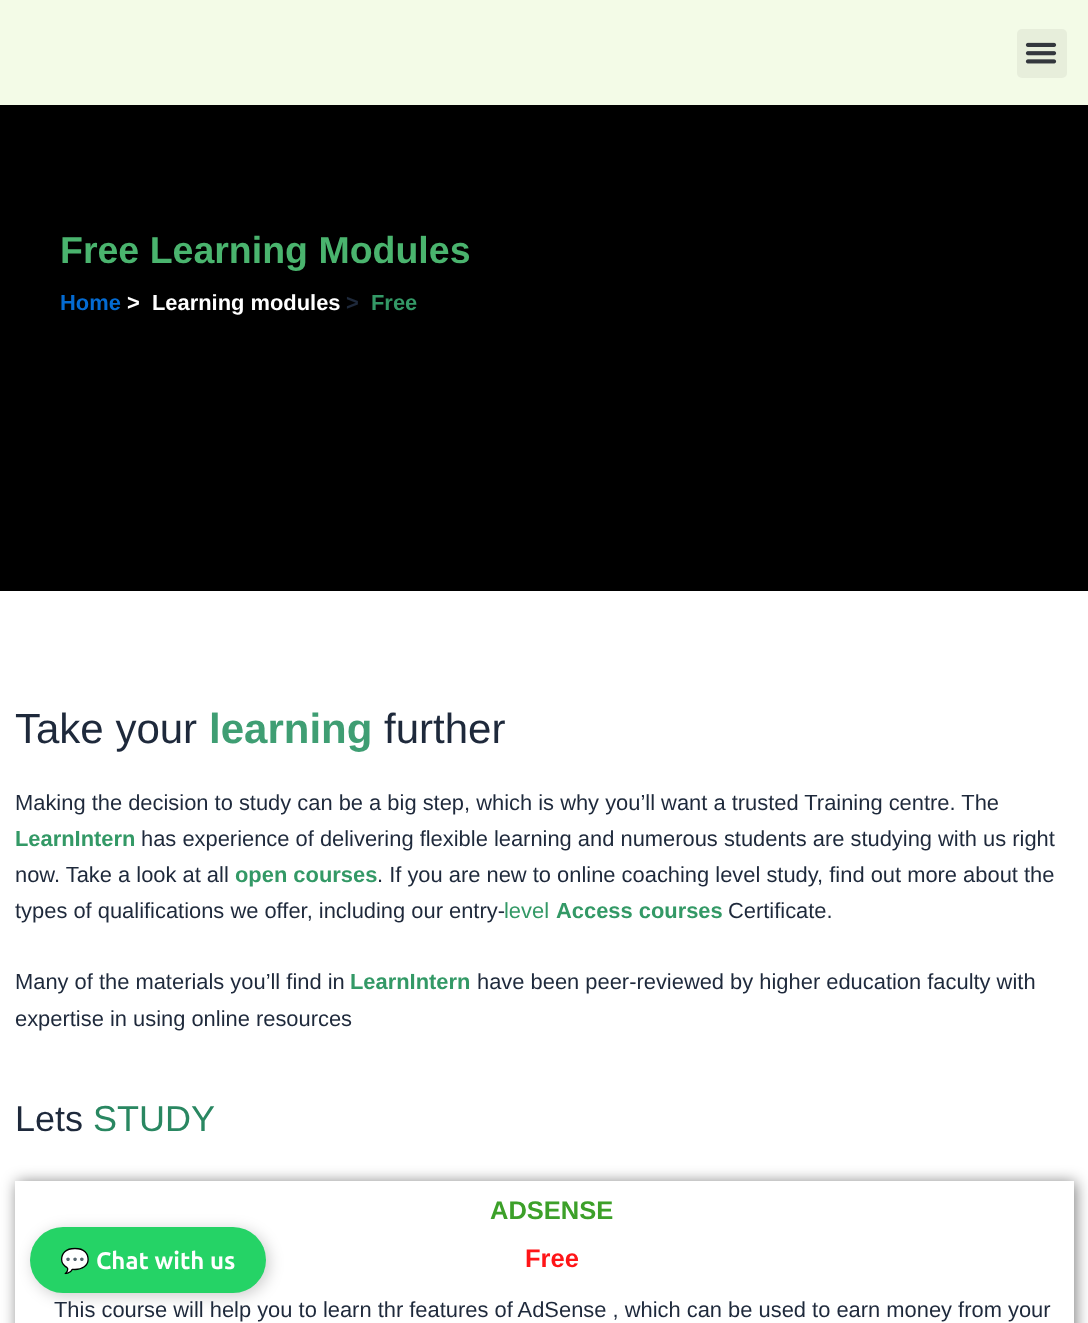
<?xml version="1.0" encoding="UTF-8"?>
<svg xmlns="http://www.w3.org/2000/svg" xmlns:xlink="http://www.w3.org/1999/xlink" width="1088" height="1323">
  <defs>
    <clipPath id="clip1"><path d="M 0 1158 h 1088 v 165 h -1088 z m 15 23 h 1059 v 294 h -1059 z" clip-rule="evenodd" /></clipPath>
  </defs>
  <rect width="100%" height="100%" fill="#ffffff" />
  <rect width="1088" height="105" fill="#f3fbe7" />
  <rect x="1017" y="29" width="50" height="49" rx="5" fill="#e7eedb" />
  <image x="1025" y="42" width="32" height="22" xlink:href="image1.png" />
  <rect y="105" width="1088" height="486" fill="#000000" />
  <g clip-path="url(#clip1)">
    <rect x="17" y="1182" width="1059" height="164" fill="#000000" fill-opacity="0.5" filter="blur(7.5px)" />
  </g>
  <rect x="33" y="1230" width="236" height="66" rx="33" fill="#000000" fill-opacity="0.2" filter="blur(7.5px)" />
  <rect x="30" y="1227" width="236" height="66" rx="33" fill="#25d366" />
  <text x="60" y="263" style="font-family: Liberation Sans; font-size: 37.5px; font-weight: bold; fill: #4ab46e">Free Learning Modules</text>
  <text x="60" y="310" style="font-family: Liberation Sans; font-size: 21.9px; font-weight: bold; fill: #046bd2">Home</text>
  <text x="127" y="310" style="font-family: Liberation Sans; font-size: 21.9px; font-weight: bold; fill: #ffffff">&gt;</text>
  <text x="152" y="310" style="font-family: Liberation Sans; font-size: 21.9px; font-weight: bold; fill: #ffffff">Learning modules</text>
  <text x="346" y="310" style="font-family: Liberation Sans; font-size: 21.9px; font-weight: bold; fill: #1e293b">&gt;</text>
  <text x="371" y="310" style="font-family: Liberation Sans; font-size: 21.9px; font-weight: bold; fill: #339966">Free</text>
  <text x="15" y="743" style="font-family: Liberation Sans; font-size: 42px; fill: #1e293b">Take your</text>
  <text x="209" y="743" style="font-family: Liberation Sans; font-size: 42px; font-weight: bold; fill: #3f9e73">learning</text>
  <text x="384" y="743" style="font-family: Liberation Sans; font-size: 42px; fill: #1e293b">further</text>
  <text x="15" y="810" style="font-family: Liberation Sans; font-size: 21.9px; fill: #1e293b">Making the decision to study can be a big step, which is why you’ll want a trusted Training centre. The</text>
  <text x="15" y="846" style="font-family: Liberation Sans; font-size: 21.9px; font-weight: bold; fill: #339966">LearnIntern</text>
  <text x="141" y="846" style="font-family: Liberation Sans; font-size: 21.9px; fill: #1e293b">has experience of delivering flexible learning and numerous students are studying with us right</text>
  <text x="15" y="882" style="font-family: Liberation Sans; font-size: 21.9px; fill: #1e293b">now. Take a look at all</text>
  <text x="235" y="882" style="font-family: Liberation Sans; font-size: 21.9px; font-weight: bold; fill: #339966">open courses</text>
  <text x="377" y="882" style="font-family: Liberation Sans; font-size: 21.9px; fill: #1e293b">. If you are new to online coaching level study, find out more about the</text>
  <text x="15" y="918" style="font-family: Liberation Sans; font-size: 21.9px; fill: #1e293b">types of qualifications we offer, including our entry-</text>
  <text x="504" y="918" style="font-family: Liberation Sans; font-size: 21.9px; fill: #339966">level</text>
  <text x="556" y="918" style="font-family: Liberation Sans; font-size: 21.9px; font-weight: bold; fill: #339966">Access courses</text>
  <text x="728" y="918" style="font-family: Liberation Sans; font-size: 21.9px; fill: #1e293b">Certificate.</text>
  <text x="15" y="989" style="font-family: Liberation Sans; font-size: 21.9px; fill: #1e293b">Many of the materials you’ll find in</text>
  <text x="350" y="989" style="font-family: Liberation Sans; font-size: 21.9px; font-weight: bold; fill: #339966">LearnIntern</text>
  <text x="477" y="989" style="font-family: Liberation Sans; font-size: 21.9px; fill: #1e293b">have been peer-reviewed by higher education faculty with</text>
  <text x="15" y="1026" style="font-family: Liberation Sans; font-size: 21.9px; fill: #1e293b">expertise in using online resources</text>
  <text x="15" y="1131" style="font-family: Liberation Sans; font-size: 36px; fill: #1e293b">Lets</text>
  <text x="93" y="1131" style="font-family: Liberation Sans; font-size: 36px; fill: #298761">STUDY</text>
  <text x="490" y="1219" style="font-family: Liberation Sans; font-size: 25.5px; font-weight: bold; fill: #3ca029">ADSENSE</text>
  <text x="525" y="1267" style="font-family: Liberation Sans; font-size: 25.5px; font-weight: bold; fill: #ff1518">Free</text>
  <text x="54" y="1317" style="font-family: Liberation Sans; font-size: 21.9px; fill: #1e293b">This course will help you to learn thr features of AdSense , which can be used to earn money from your</text>
  <text x="60" y="1269" style="font-family: Noto Color Emoji; font-size: 24px; font-weight: bold; fill: #ffffff">💬</text>
  <text x="96" y="1269" style="font-family: Ubuntu; font-size: 24px; font-weight: bold; fill: #ffffff">Chat with us</text>
</svg>
